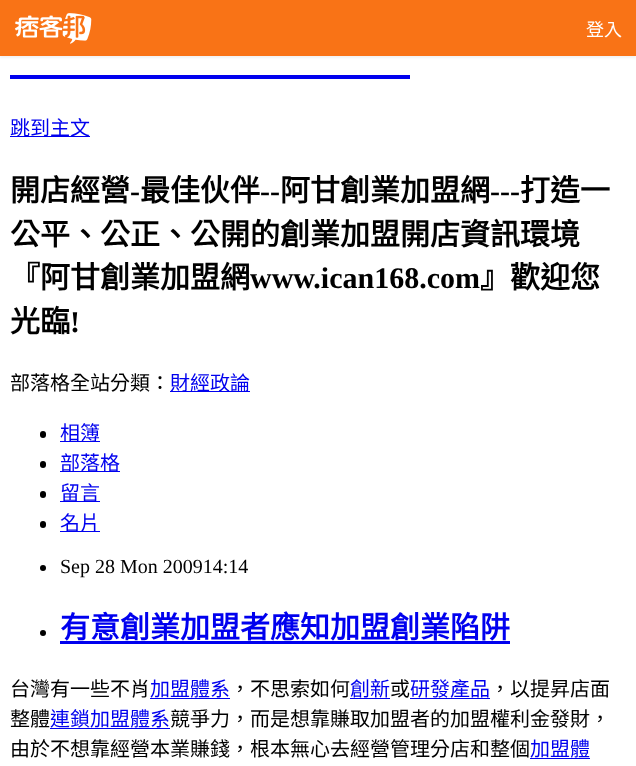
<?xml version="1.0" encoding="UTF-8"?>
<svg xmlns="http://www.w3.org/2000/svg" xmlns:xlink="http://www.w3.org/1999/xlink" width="636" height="766">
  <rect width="100%" height="100%" fill="#ffffff" />
  <rect y="1" width="636" height="57" fill="#000000" fill-opacity="0.05" filter="blur(1px)" />
  <rect width="636" height="56" fill="#f97316" />
  <image x="15" y="13" width="77" height="31" xlink:href="image1.png" />
  <rect x="10" y="75" width="400" height="4" fill="#0000ee" />
  <rect x="10" y="136" width="80" height="1" fill="#0000ee" />
  <rect x="170" y="391" width="80" height="1" fill="#0000ee" />
  <rect x="40" y="431" width="6" height="7" rx="3" fill="#000000" />
  <rect x="60" y="441" width="40" height="1" fill="#0000ee" />
  <rect x="40" y="461" width="6" height="7" rx="3" fill="#000000" />
  <rect x="60" y="471" width="60" height="1" fill="#0000ee" />
  <rect x="40" y="491" width="6" height="7" rx="3" fill="#000000" />
  <rect x="60" y="501" width="40" height="1" fill="#0000ee" />
  <rect x="40" y="521" width="6" height="7" rx="3" fill="#000000" />
  <rect x="60" y="531" width="40" height="1" fill="#0000ee" />
  <circle cx="43" cy="568" r="3" fill="#000000" />
  <circle cx="43" cy="633" r="3" fill="#000000" />
  <rect x="60" y="641" width="450" height="3" fill="#0000ee" />
  <rect x="150" y="698" width="80" height="1" fill="#0000ee" />
  <rect x="350" y="698" width="40" height="1" fill="#0000ee" />
  <rect x="410" y="698" width="80" height="1" fill="#0000ee" />
  <rect x="50" y="728" width="120" height="1" fill="#0000ee" />
  <rect x="530" y="758" width="60" height="1" fill="#0000ee" />
  <text x="586" y="36" style="font-family: Noto Sans CJK TC; font-size: 18px; fill: #ffffff">登入</text>
  <text x="10" y="135" style="font-family: Noto Sans CJK TC; font-size: 20px; fill: #0000ee">跳到主文</text>
  <text x="10" y="201" style="font-family: Noto Sans CJK TC; font-size: 30px; font-weight: bold; fill: #000000">開店經營</text>
  <text x="130" y="201" style="font-family: Liberation Serif; font-size: 30px; font-weight: bold; fill: #000000">-</text>
  <text x="140" y="201" style="font-family: Noto Sans CJK TC; font-size: 30px; font-weight: bold; fill: #000000">最佳伙伴</text>
  <text x="260" y="201" style="font-family: Liberation Serif; font-size: 30px; font-weight: bold; fill: #000000">--</text>
  <text x="280" y="201" style="font-family: Noto Sans CJK TC; font-size: 30px; font-weight: bold; fill: #000000">阿甘創業加盟網</text>
  <text x="490" y="201" style="font-family: Liberation Serif; font-size: 30px; font-weight: bold; fill: #000000">---</text>
  <text x="520" y="201" style="font-family: Noto Sans CJK TC; font-size: 30px; font-weight: bold; fill: #000000">打造一</text>
  <text x="10" y="245" style="font-family: Noto Sans CJK TC; font-size: 30px; font-weight: bold; fill: #000000">公平、公正、公開的創業加盟開店資訊環境</text>
  <text x="10" y="288" style="font-family: Noto Sans CJK TC; font-size: 30px; font-weight: bold; fill: #000000">『阿甘創業加盟網</text>
  <text x="250" y="288" style="font-family: Liberation Serif; font-size: 30px; font-weight: bold; fill: #000000">www.ican168.com</text>
  <text x="480" y="288" style="font-family: Noto Sans CJK TC; font-size: 30px; font-weight: bold; fill: #000000">』歡迎您</text>
  <text x="10" y="332" style="font-family: Noto Sans CJK TC; font-size: 30px; font-weight: bold; fill: #000000">光臨</text>
  <text x="70" y="332" style="font-family: Liberation Serif; font-size: 30px; font-weight: bold; fill: #000000">!</text>
  <text x="10" y="390" style="font-family: Noto Sans CJK TC; font-size: 20px; fill: #000000">部落格全站分類：</text>
  <text x="170" y="390" style="font-family: Noto Sans CJK TC; font-size: 20px; fill: #0000ee">財經政論</text>
  <text x="60" y="440" style="font-family: Noto Sans CJK TC; font-size: 20px; fill: #0000ee">相簿</text>
  <text x="60" y="470" style="font-family: Noto Sans CJK TC; font-size: 20px; fill: #0000ee">部落格</text>
  <text x="60" y="500" style="font-family: Noto Sans CJK TC; font-size: 20px; fill: #0000ee">留言</text>
  <text x="60" y="530" style="font-family: Noto Sans CJK TC; font-size: 20px; fill: #0000ee">名片</text>
  <text x="60" y="573" style="font-family: Liberation Serif; font-size: 20px; fill: #000000">Sep 28 Mon 200914:14</text>
  <text x="60" y="638" style="font-family: Noto Sans CJK TC; font-size: 30px; font-weight: bold; fill: #0000ee">有意創業加盟者應知加盟創業陷阱</text>
  <text x="10" y="696" style="font-family: Noto Sans CJK TC; font-size: 20px; fill: #000000">台灣有一些不肖</text>
  <text x="150" y="696" style="font-family: Noto Sans CJK TC; font-size: 20px; fill: #0000ee">加盟體系</text>
  <text x="230" y="696" style="font-family: Noto Sans CJK TC; font-size: 20px; fill: #000000">，不思索如何</text>
  <text x="350" y="696" style="font-family: Noto Sans CJK TC; font-size: 20px; fill: #0000ee">創新</text>
  <text x="390" y="696" style="font-family: Noto Sans CJK TC; font-size: 20px; fill: #000000">或</text>
  <text x="410" y="696" style="font-family: Noto Sans CJK TC; font-size: 20px; fill: #0000ee">研發產品</text>
  <text x="490" y="696" style="font-family: Noto Sans CJK TC; font-size: 20px; fill: #000000">，以提昇店面</text>
  <text x="10" y="726" style="font-family: Noto Sans CJK TC; font-size: 20px; fill: #000000">整體</text>
  <text x="50" y="726" style="font-family: Noto Sans CJK TC; font-size: 20px; fill: #0000ee">連鎖加盟體系</text>
  <text x="170" y="726" style="font-family: Noto Sans CJK TC; font-size: 20px; fill: #000000">競爭力，而是想靠賺取加盟者的加盟權利金發財，</text>
  <text x="10" y="756" style="font-family: Noto Sans CJK TC; font-size: 20px; fill: #000000">由於不想靠經營本業賺錢，根本無心去經營管理分店和整個</text>
  <text x="530" y="756" style="font-family: Noto Sans CJK TC; font-size: 20px; fill: #0000ee">加盟體</text>
</svg>
